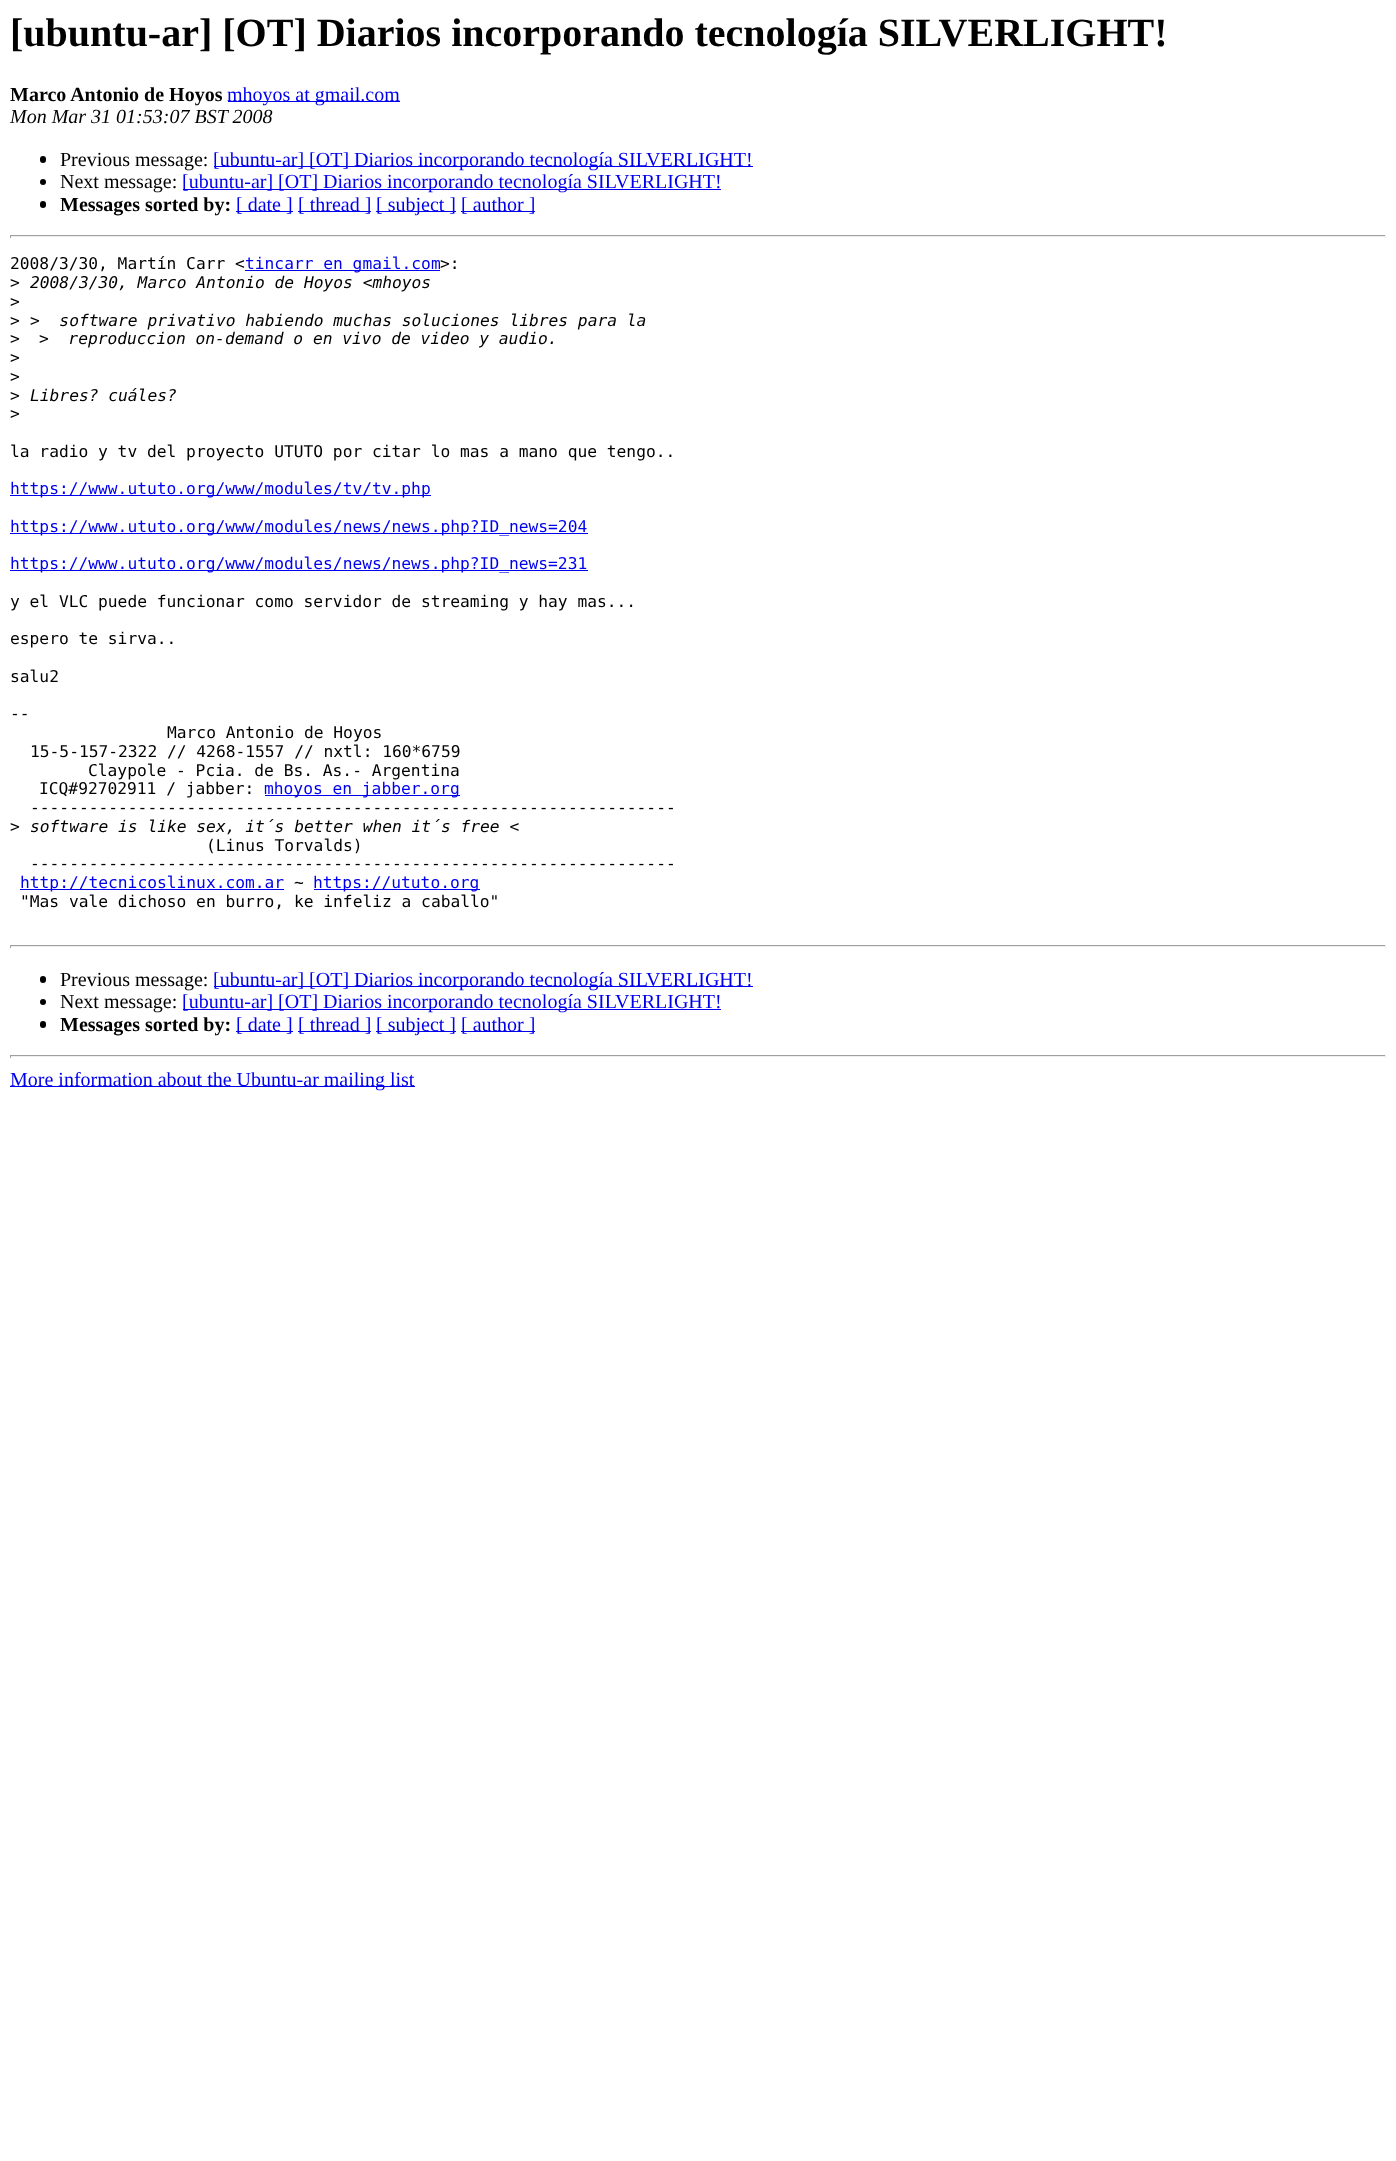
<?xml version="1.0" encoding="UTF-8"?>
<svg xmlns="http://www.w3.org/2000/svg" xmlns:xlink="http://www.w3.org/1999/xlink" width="1396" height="2161">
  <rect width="100%" height="100%" fill="#ffffff" />
  <rect x="228" y="101" width="172" height="1" fill="#0000ee" />
  <rect x="40" y="156" width="6" height="7" rx="3" fill="#000000" />
  <rect x="214" y="166" width="539" height="1" fill="#0000ee" />
  <circle cx="43" cy="182" r="3" fill="#000000" />
  <rect x="183" y="189" width="538" height="1" fill="#0000ee" />
  <rect x="40" y="201" width="6" height="7" rx="3" fill="#000000" />
  <rect x="236" y="211" width="57" height="1" fill="#0000ee" />
  <rect x="298" y="211" width="73" height="1" fill="#0000ee" />
  <rect x="376" y="211" width="80" height="1" fill="#0000ee" />
  <rect x="461" y="211" width="74" height="1" fill="#0000ee" />
  <rect x="10" y="235" width="1376" height="1" fill="#9f9f9f" />
  <rect x="1385" y="235" width="1" height="3" fill="#eeeeee" />
  <rect x="10" y="236" width="1376" height="1" fill="#eeeeee" />
  <rect x="10" y="235" width="1" height="3" fill="#9f9f9f" />
  <rect x="245" y="270" width="195" height="1" fill="#0000ee" />
  <rect x="10" y="495" width="421" height="1" fill="#0000ee" />
  <rect x="10" y="533" width="578" height="1" fill="#0000ee" />
  <rect x="10" y="570" width="578" height="1" fill="#0000ee" />
  <rect x="265" y="795" width="195" height="1" fill="#0000ee" />
  <rect x="20" y="889" width="264" height="1" fill="#0000ee" />
  <rect x="314" y="889" width="166" height="1" fill="#0000ee" />
  <rect x="10" y="945" width="1376" height="1" fill="#9f9f9f" />
  <rect x="1385" y="945" width="1" height="3" fill="#eeeeee" />
  <rect x="10" y="946" width="1376" height="1" fill="#eeeeee" />
  <rect x="10" y="945" width="1" height="3" fill="#9f9f9f" />
  <rect x="40" y="976" width="6" height="7" rx="3" fill="#000000" />
  <rect x="214" y="986" width="539" height="1" fill="#0000ee" />
  <circle cx="43" cy="1002" r="3" fill="#000000" />
  <rect x="183" y="1009" width="538" height="1" fill="#0000ee" />
  <rect x="40" y="1021" width="6" height="7" rx="3" fill="#000000" />
  <rect x="236" y="1031" width="57" height="1" fill="#0000ee" />
  <rect x="298" y="1031" width="73" height="1" fill="#0000ee" />
  <rect x="376" y="1031" width="80" height="1" fill="#0000ee" />
  <rect x="461" y="1031" width="74" height="1" fill="#0000ee" />
  <rect x="10" y="1055" width="1376" height="1" fill="#9f9f9f" />
  <rect x="1385" y="1055" width="1" height="3" fill="#eeeeee" />
  <rect x="10" y="1056" width="1376" height="1" fill="#eeeeee" />
  <rect x="10" y="1055" width="1" height="3" fill="#9f9f9f" />
  <rect x="10" y="1086" width="405" height="1" fill="#0000ee" />
  <text x="10" y="46" style="font-family: Liberation Serif; font-size: 40px; font-weight: bold; fill: #000000">[ubuntu-ar] [OT] Diarios incorporando tecnología SILVERLIGHT!</text>
  <text x="10" y="101" style="font-family: Liberation Serif; font-size: 20px; font-weight: bold; fill: #000000">Marco Antonio de Hoyos</text>
  <text x="227" y="101" style="font-family: Liberation Serif; font-size: 20px; fill: #0000ee">mhoyos at gmail.com</text>
  <text x="10" y="123" style="font-family: Liberation Serif; font-size: 20px; font-style: italic; fill: #000000">Mon Mar 31 01:53:07 BST 2008</text>
  <text x="60" y="166" style="font-family: Liberation Serif; font-size: 20px; fill: #000000">Previous message:</text>
  <text x="213" y="166" style="font-family: Liberation Serif; font-size: 20px; fill: #0000ee">[ubuntu-ar] [OT] Diarios incorporando tecnología SILVERLIGHT!</text>
  <text x="60" y="188" style="font-family: Liberation Serif; font-size: 20px; fill: #000000">Next message:</text>
  <text x="182" y="188" style="font-family: Liberation Serif; font-size: 20px; fill: #0000ee">[ubuntu-ar] [OT] Diarios incorporando tecnología SILVERLIGHT!</text>
  <text x="60" y="211" style="font-family: Liberation Serif; font-size: 20px; font-weight: bold; fill: #000000">Messages sorted by:</text>
  <text x="236" y="211" style="font-family: Liberation Serif; font-size: 20px; fill: #0000ee">[ date ]</text>
  <text x="298" y="211" style="font-family: Liberation Serif; font-size: 20px; fill: #0000ee">[ thread ]</text>
  <text x="376" y="211" style="font-family: Liberation Serif; font-size: 20px; fill: #0000ee">[ subject ]</text>
  <text x="461" y="211" style="font-family: Liberation Serif; font-size: 20px; fill: #0000ee">[ author ]</text>
  <text x="10" y="269" style="font-family: DejaVu Sans Mono; font-size: 16.25px; fill: #000000">2008/3/30, Martín Carr &lt;</text>
  <text x="245" y="269" style="font-family: DejaVu Sans Mono; font-size: 16.25px; fill: #0000ee">tincarr en gmail.com</text>
  <text x="440" y="269" style="font-family: DejaVu Sans Mono; font-size: 16.25px; fill: #000000">&gt;:</text>
  <text x="10" y="288" style="font-family: DejaVu Sans Mono; font-size: 16.25px; fill: #000000">&gt;</text>
  <text x="30" y="288" style="font-family: DejaVu Sans Mono; font-size: 16.25px; font-style: italic; fill: #000000">2008/3/30, Marco Antonio de Hoyos &lt;mhoyos</text>
  <text x="10" y="307" style="font-family: DejaVu Sans Mono; font-size: 16.25px; fill: #000000">&gt;</text>
  <text x="10" y="326" style="font-family: DejaVu Sans Mono; font-size: 16.25px; fill: #000000">&gt;</text>
  <text x="30" y="326" style="font-family: DejaVu Sans Mono; font-size: 16.25px; font-style: italic; fill: #000000" xml:space="preserve">&gt;  software privativo habiendo muchas soluciones libres para la</text>
  <text x="10" y="344" style="font-family: DejaVu Sans Mono; font-size: 16.25px; fill: #000000">&gt;</text>
  <text x="39" y="344" style="font-family: DejaVu Sans Mono; font-size: 16.25px; font-style: italic; fill: #000000" xml:space="preserve">&gt;  reproduccion on-demand o en vivo de video y audio.</text>
  <text x="10" y="363" style="font-family: DejaVu Sans Mono; font-size: 16.25px; fill: #000000">&gt;</text>
  <text x="10" y="382" style="font-family: DejaVu Sans Mono; font-size: 16.25px; fill: #000000">&gt;</text>
  <text x="10" y="401" style="font-family: DejaVu Sans Mono; font-size: 16.25px; fill: #000000">&gt;</text>
  <text x="30" y="401" style="font-family: DejaVu Sans Mono; font-size: 16.25px; font-style: italic; fill: #000000">Libres? cuáles?</text>
  <text x="10" y="419" style="font-family: DejaVu Sans Mono; font-size: 16.25px; fill: #000000">&gt;</text>
  <text x="10" y="457" style="font-family: DejaVu Sans Mono; font-size: 16.25px; fill: #000000">la radio y tv del proyecto UTUTO por citar lo mas a mano que tengo..</text>
  <text x="10" y="494" style="font-family: DejaVu Sans Mono; font-size: 16.25px; fill: #0000ee">https://www.ututo.org/www/modules/tv/tv.php</text>
  <text x="10" y="532" style="font-family: DejaVu Sans Mono; font-size: 16.25px; fill: #0000ee">https://www.ututo.org/www/modules/news/news.php?ID_news=204</text>
  <text x="10" y="569" style="font-family: DejaVu Sans Mono; font-size: 16.25px; fill: #0000ee">https://www.ututo.org/www/modules/news/news.php?ID_news=231</text>
  <text x="10" y="607" style="font-family: DejaVu Sans Mono; font-size: 16.25px; fill: #000000">y el VLC puede funcionar como servidor de streaming y hay mas...</text>
  <text x="10" y="644" style="font-family: DejaVu Sans Mono; font-size: 16.25px; fill: #000000">espero te sirva..</text>
  <text x="10" y="682" style="font-family: DejaVu Sans Mono; font-size: 16.25px; fill: #000000">salu2</text>
  <text x="10" y="719" style="font-family: DejaVu Sans Mono; font-size: 16.25px; fill: #000000">--</text>
  <text x="167" y="738" style="font-family: DejaVu Sans Mono; font-size: 16.25px; fill: #000000">Marco Antonio de Hoyos</text>
  <text x="30" y="757" style="font-family: DejaVu Sans Mono; font-size: 16.25px; fill: #000000">15-5-157-2322 // 4268-1557 // nxtl: 160*6759</text>
  <text x="88" y="776" style="font-family: DejaVu Sans Mono; font-size: 16.25px; fill: #000000">Claypole - Pcia. de Bs. As.- Argentina</text>
  <text x="39" y="794" style="font-family: DejaVu Sans Mono; font-size: 16.25px; fill: #000000">ICQ#92702911 / jabber:</text>
  <text x="264" y="794" style="font-family: DejaVu Sans Mono; font-size: 16.25px; fill: #0000ee">mhoyos en jabber.org</text>
  <text x="30" y="813" style="font-family: DejaVu Sans Mono; font-size: 16.25px; fill: #000000">------------------------------------------------------------------</text>
  <text x="10" y="832" style="font-family: DejaVu Sans Mono; font-size: 16.25px; fill: #000000">&gt;</text>
  <text x="30" y="832" style="font-family: DejaVu Sans Mono; font-size: 16.25px; font-style: italic; fill: #000000">software is like sex, it´s better when it´s free &lt;</text>
  <text x="206" y="851" style="font-family: DejaVu Sans Mono; font-size: 16.25px; fill: #000000">(Linus Torvalds)</text>
  <text x="30" y="869" style="font-family: DejaVu Sans Mono; font-size: 16.25px; fill: #000000">------------------------------------------------------------------</text>
  <text x="20" y="888" style="font-family: DejaVu Sans Mono; font-size: 16.25px; fill: #0000ee">http://tecnicoslinux.com.ar</text>
  <text x="294" y="888" style="font-family: DejaVu Sans Mono; font-size: 16.25px; fill: #000000">~</text>
  <text x="313" y="888" style="font-family: DejaVu Sans Mono; font-size: 16.25px; fill: #0000ee">https://ututo.org</text>
  <text x="20" y="907" style="font-family: DejaVu Sans Mono; font-size: 16.25px; fill: #000000">"Mas vale dichoso en burro, ke infeliz a caballo"</text>
  <text x="60" y="986" style="font-family: Liberation Serif; font-size: 20px; fill: #000000">Previous message:</text>
  <text x="213" y="986" style="font-family: Liberation Serif; font-size: 20px; fill: #0000ee">[ubuntu-ar] [OT] Diarios incorporando tecnología SILVERLIGHT!</text>
  <text x="60" y="1008" style="font-family: Liberation Serif; font-size: 20px; fill: #000000">Next message:</text>
  <text x="182" y="1008" style="font-family: Liberation Serif; font-size: 20px; fill: #0000ee">[ubuntu-ar] [OT] Diarios incorporando tecnología SILVERLIGHT!</text>
  <text x="60" y="1031" style="font-family: Liberation Serif; font-size: 20px; font-weight: bold; fill: #000000">Messages sorted by:</text>
  <text x="236" y="1031" style="font-family: Liberation Serif; font-size: 20px; fill: #0000ee">[ date ]</text>
  <text x="298" y="1031" style="font-family: Liberation Serif; font-size: 20px; fill: #0000ee">[ thread ]</text>
  <text x="376" y="1031" style="font-family: Liberation Serif; font-size: 20px; fill: #0000ee">[ subject ]</text>
  <text x="461" y="1031" style="font-family: Liberation Serif; font-size: 20px; fill: #0000ee">[ author ]</text>
  <text x="10" y="1086" style="font-family: Liberation Serif; font-size: 20px; fill: #0000ee">More information about the Ubuntu-ar mailing list</text>
</svg>
